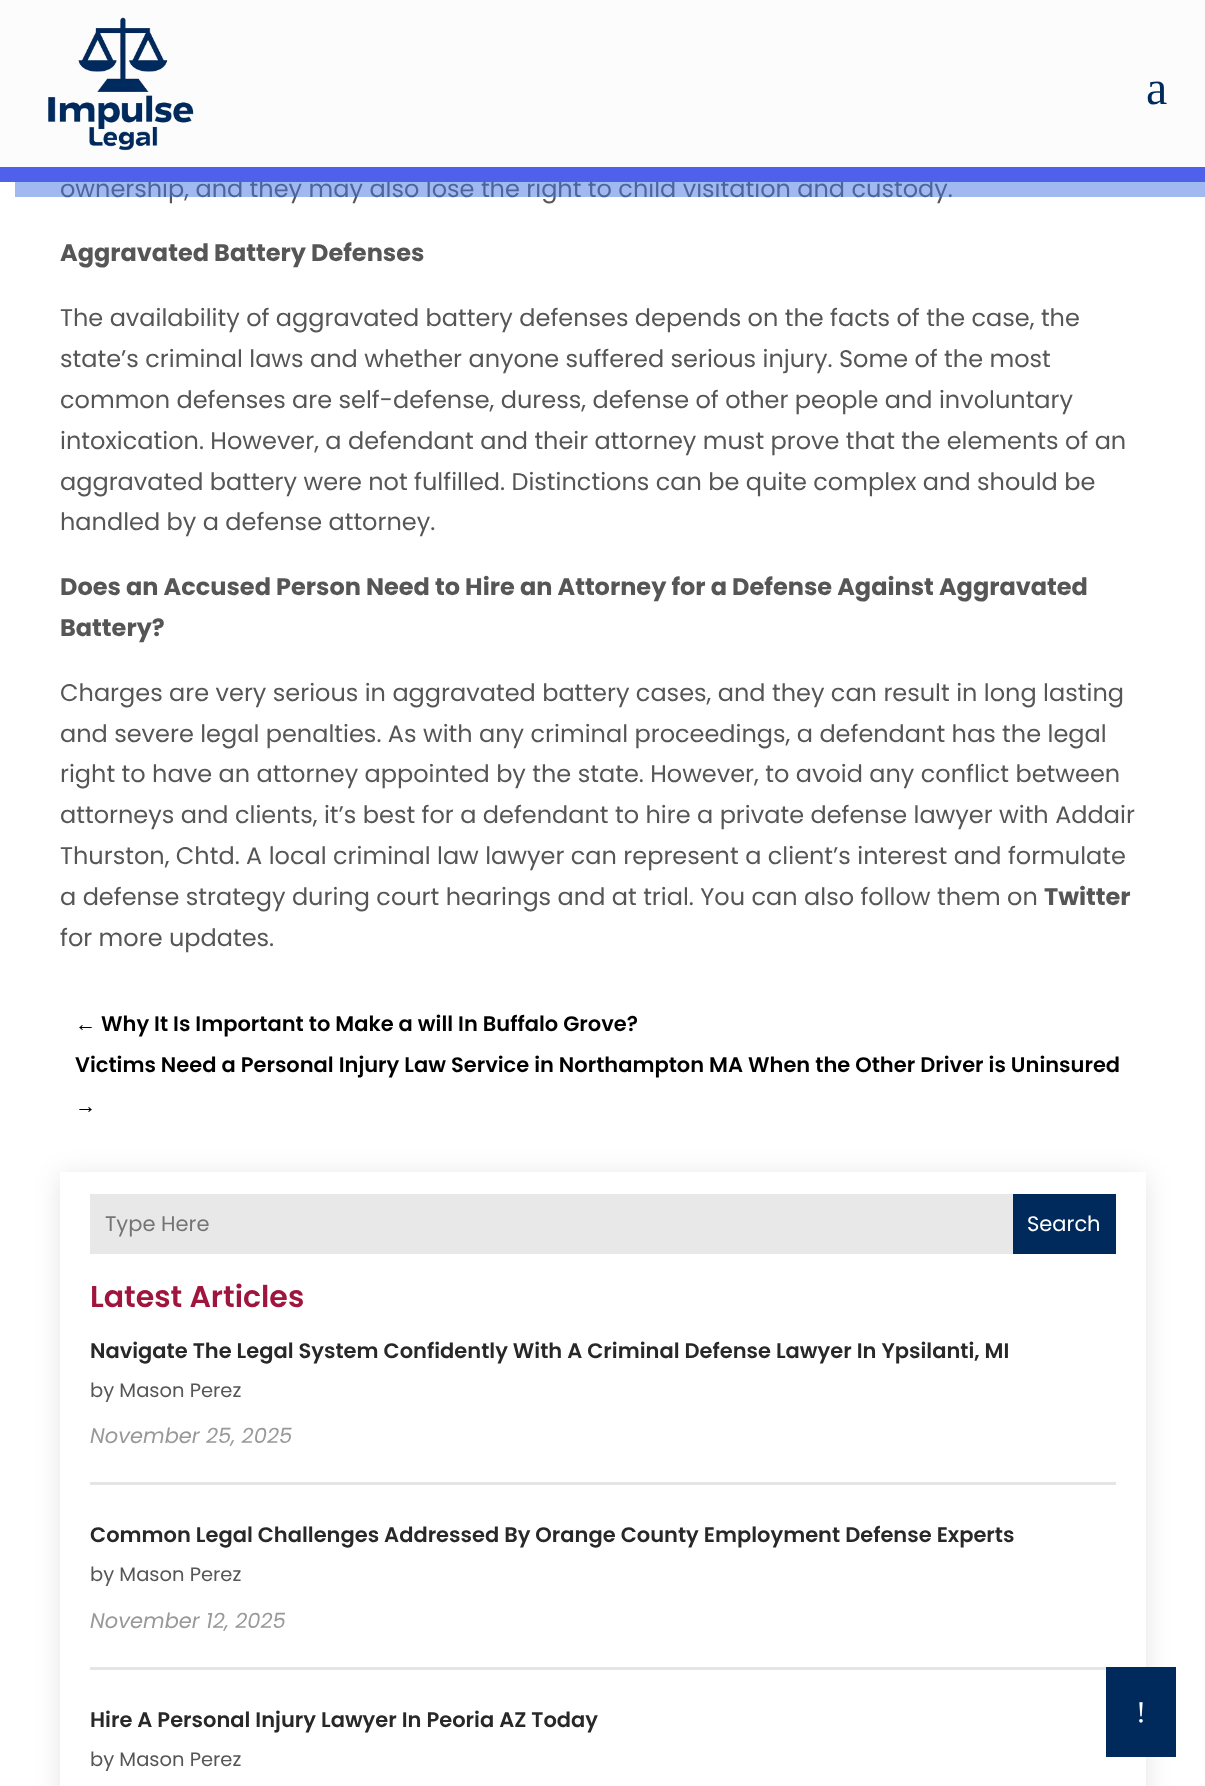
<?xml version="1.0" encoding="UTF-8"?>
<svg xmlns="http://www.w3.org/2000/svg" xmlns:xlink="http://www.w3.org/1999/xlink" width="1205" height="1786">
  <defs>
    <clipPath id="clip1"><path d="M 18 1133 h 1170 v 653 h -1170 z m 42 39 h 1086 v 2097 h -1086 z" clip-rule="evenodd" /></clipPath>
  </defs>
  <rect width="100%" height="100%" fill="#ffffff" />
  <rect width="1205" height="167" fill="#fcfcfc" />
  <image x="48" y="17" width="146" height="134" xlink:href="image1.png" />
  <g clip-path="url(#clip1)">
    <rect x="60" y="1175" width="1086" height="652" fill="#000000" fill-opacity="0.1" filter="blur(13.5px)" />
  </g>
  <rect x="90" y="1194" width="923" height="60" fill="#e8e8e8" />
  <rect x="1013" y="1194" width="103" height="60" fill="#002a5c" />
  <rect x="90" y="1482" width="1026" height="3" fill="#e5e5e5" />
  <rect x="90" y="1667" width="1016" height="3" fill="#e5e5e5" />
  <rect x="1106" y="1667" width="70" height="90" fill="#002a5c" />
  <text x="1146" y="104" style="font-family: Liberation Serif; font-size: 48px; fill: #002a5c">a</text>
  <text x="60" y="197" style="font-family: Poppins; font-size: 24px; fill: #565656">ownership, and they may also lose the right to child visitation and custody.</text>
  <rect y="167" width="1205" height="15" fill="#4f61ea" />
  <path d="M 15 182 v 15 h 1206 v -182 h -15 v 167 z" fill="#4174e2" fill-opacity="0.5" />
  <text x="60" y="261" style="font-family: Poppins; font-size: 24px; font-weight: bold; fill: #565656">Aggravated Battery Defenses</text>
  <text x="60" y="326" style="font-family: Poppins; font-size: 24px; fill: #565656">The availability of aggravated battery defenses depends on the facts of the case, the</text>
  <text x="60" y="367" style="font-family: Poppins; font-size: 24px; fill: #565656">state’s criminal laws and whether anyone suffered serious injury. Some of the most</text>
  <text x="60" y="408" style="font-family: Poppins; font-size: 24px; fill: #565656">common defenses are self-defense, duress, defense of other people and involuntary</text>
  <text x="60" y="449" style="font-family: Poppins; font-size: 24px; fill: #565656">intoxication. However, a defendant and their attorney must prove that the elements of an</text>
  <text x="60" y="490" style="font-family: Poppins; font-size: 24px; fill: #565656">aggravated battery were not fulfilled. Distinctions can be quite complex and should be</text>
  <text x="60" y="530" style="font-family: Poppins; font-size: 24px; fill: #565656">handled by a defense attorney.</text>
  <text x="60" y="595" style="font-family: Poppins; font-size: 24px; font-weight: bold; fill: #565656">Does an Accused Person Need to Hire an Attorney for a Defense Against Aggravated</text>
  <text x="60" y="636" style="font-family: Poppins; font-size: 24px; font-weight: bold; fill: #565656">Battery?</text>
  <text x="60" y="701" style="font-family: Poppins; font-size: 24px; fill: #565656">Charges are very serious in aggravated battery cases, and they can result in long lasting</text>
  <text x="60" y="742" style="font-family: Poppins; font-size: 24px; fill: #565656">and severe legal penalties. As with any criminal proceedings, a defendant has the legal</text>
  <text x="60" y="782" style="font-family: Poppins; font-size: 24px; fill: #565656">right to have an attorney appointed by the state. However, to avoid any conflict between</text>
  <text x="60" y="823" style="font-family: Poppins; font-size: 24px; fill: #565656">attorneys and clients, it’s best for a defendant to hire a private defense lawyer with Addair</text>
  <text x="60" y="864" style="font-family: Poppins; font-size: 24px; fill: #565656">Thurston, Chtd. A local criminal law lawyer can represent a client’s interest and formulate</text>
  <text x="60" y="905" style="font-family: Poppins; font-size: 24px; fill: #565656">a defense strategy during court hearings and at trial. You can also follow them on</text>
  <text x="1044" y="905" style="font-family: Poppins; font-size: 24px; font-weight: bold; fill: #565656">Twitter</text>
  <text x="60" y="946" style="font-family: Poppins; font-size: 24px; fill: #565656">for more updates.</text>
  <text x="75" y="1031" style="font-family: Liberation Sans; font-size: 21px; font-weight: bold; fill: #000000">←</text>
  <text x="101" y="1031" style="font-family: Poppins; font-size: 21px; font-weight: 600; fill: #000000">Why It Is Important to Make a will In Buffalo Grove?</text>
  <text x="75" y="1072" style="font-family: Poppins; font-size: 21px; font-weight: 600; fill: #000000">Victims Need a Personal Injury Law Service in Northampton MA When the Other Driver is Uninsured</text>
  <text x="75" y="1113" style="font-family: Liberation Sans; font-size: 21px; font-weight: bold; fill: #000000">→</text>
  <text x="105" y="1231" style="font-family: Poppins; font-size: 21px; fill: #757575">Type Here</text>
  <text x="1027" y="1231" style="font-family: Poppins; font-size: 21px; fill: #ffffff">Search</text>
  <text x="90" y="1307" style="font-family: Poppins; font-size: 30px; font-weight: 600; fill: #a0153e">Latest Articles</text>
  <text x="90" y="1358" style="font-family: Poppins; font-size: 21px; font-weight: 600; fill: #282828">Navigate The Legal System Confidently With A Criminal Defense Lawyer In Ypsilanti, MI</text>
  <text x="90" y="1397" style="font-family: Poppins; font-size: 19.5px; fill: #565656">by Mason Perez</text>
  <text x="90" y="1443" style="font-family: Poppins; font-size: 21px; font-style: italic; fill: #999999">November 25, 2025</text>
  <text x="90" y="1542" style="font-family: Poppins; font-size: 21px; font-weight: 600; fill: #282828">Common Legal Challenges Addressed By Orange County Employment Defense Experts</text>
  <text x="90" y="1581" style="font-family: Poppins; font-size: 19.5px; fill: #565656">by Mason Perez</text>
  <text x="90" y="1628" style="font-family: Poppins; font-size: 21px; font-style: italic; fill: #999999">November 12, 2025</text>
  <text x="90" y="1727" style="font-family: Poppins; font-size: 21px; font-weight: 600; fill: #282828">Hire A Personal Injury Lawyer In Peoria AZ Today</text>
  <text x="90" y="1766" style="font-family: Poppins; font-size: 19.5px; fill: #565656">by Mason Perez</text>
  <text x="1136" y="1722" style="font-family: Liberation Serif; font-size: 30px; fill: #ffffff">!</text>
</svg>
